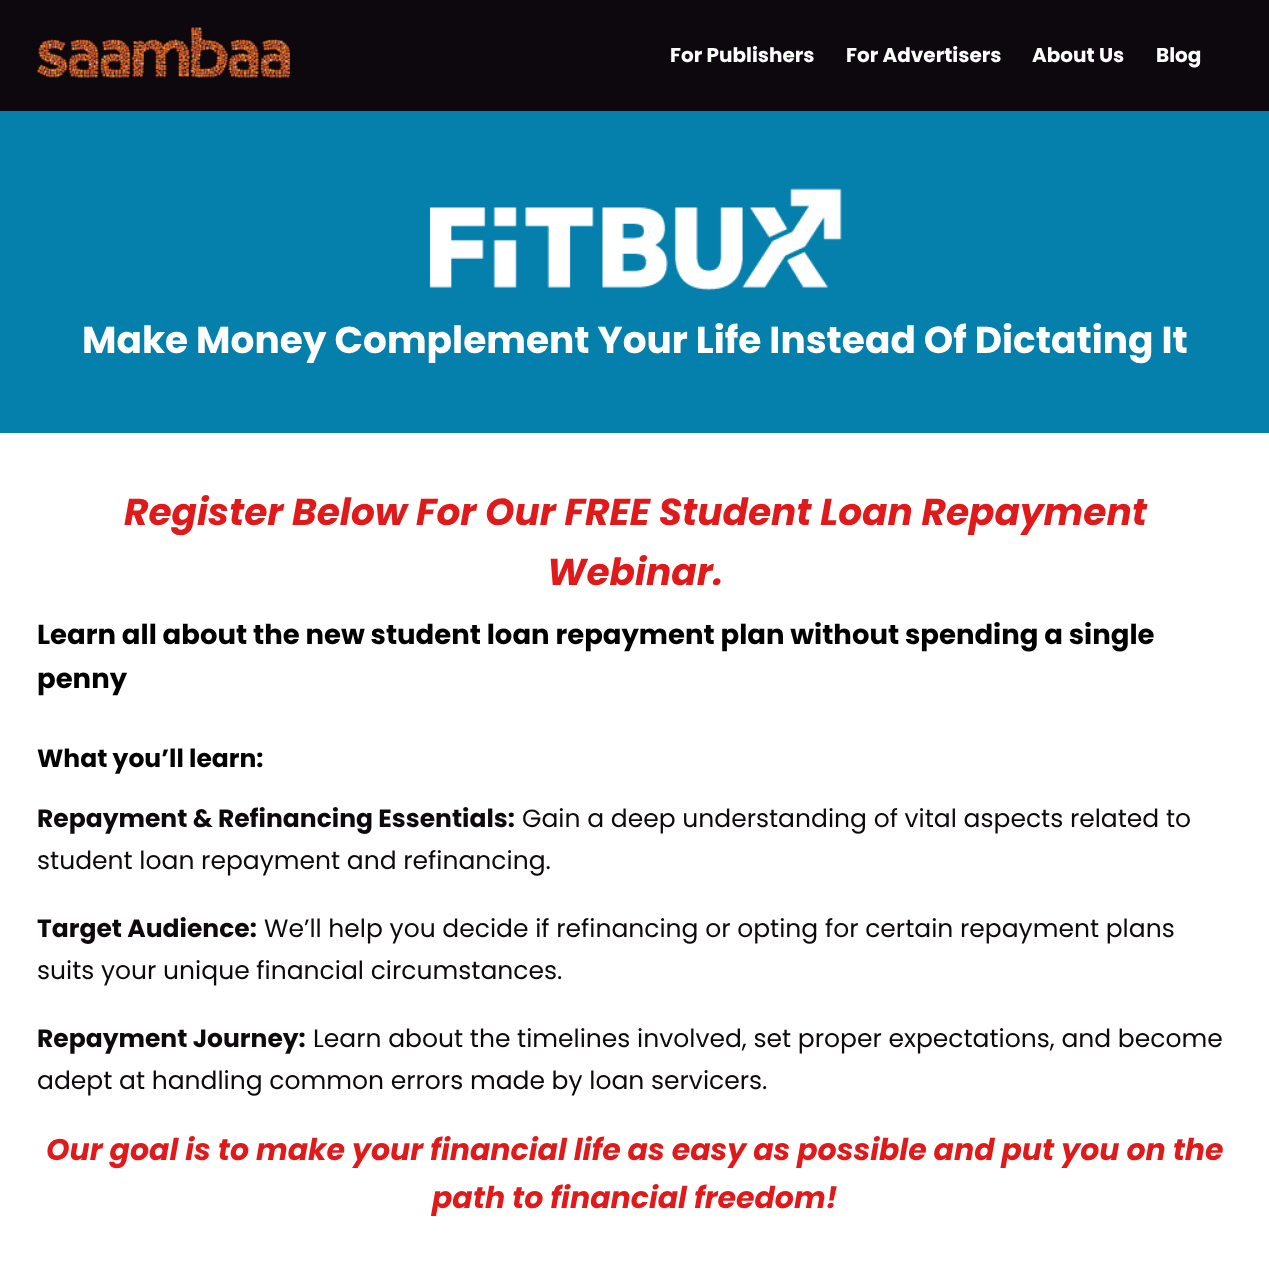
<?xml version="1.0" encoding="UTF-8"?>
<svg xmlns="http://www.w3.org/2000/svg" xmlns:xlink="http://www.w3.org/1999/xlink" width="1269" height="1282">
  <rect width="100%" height="100%" fill="#ffffff" />
  <rect width="1269" height="111" fill="#0d080e" />
  <image x="37" y="27" width="253" height="51" xlink:href="image1.png" />
  <rect y="111" width="1269" height="322" fill="#0580ac" />
  <image x="429" y="188" width="413" height="103" xlink:href="image2.png" />
  <text x="670" y="62" style="font-family: Poppins; font-size: 20px; font-weight: bold; fill: #ffffff">For Publishers</text>
  <text x="846" y="62" style="font-family: Poppins; font-size: 20px; font-weight: bold; fill: #ffffff">For Advertisers</text>
  <text x="1032" y="62" style="font-family: Poppins; font-size: 20px; font-weight: bold; fill: #ffffff">About Us</text>
  <text x="1156" y="62" style="font-family: Poppins; font-size: 20px; font-weight: bold; fill: #ffffff">Blog</text>
  <text x="82" y="353" style="font-family: Poppins; font-size: 37.5px; font-weight: bold; fill: #ffffff">Make Money Complement Your Life Instead Of Dictating It</text>
  <text x="124" y="525" style="font-family: Poppins; font-size: 37.5px; font-weight: bold; font-style: italic; fill: #e01a1a">Register Below For Our FREE Student Loan Repayment</text>
  <text x="547" y="585" style="font-family: Poppins; font-size: 37.5px; font-weight: bold; font-style: italic; fill: #e01a1a">Webinar.</text>
  <text x="37" y="644" style="font-family: Poppins; font-size: 27.5px; font-weight: bold; fill: #000000">Learn all about the new student loan repayment plan without spending a single</text>
  <text x="37" y="688" style="font-family: Poppins; font-size: 27.5px; font-weight: bold; fill: #000000">penny</text>
  <text x="37" y="767" style="font-family: Poppins; font-size: 25px; font-weight: bold; fill: #000000">What you’ll learn:</text>
  <text x="37" y="827" style="font-family: Poppins; font-size: 25px; font-weight: bold; fill: #0e090d">Repayment &amp; Refinancing Essentials:</text>
  <text x="522" y="827" style="font-family: Poppins; font-size: 25px; fill: #0e090d">Gain a deep understanding of vital aspects related to</text>
  <text x="37" y="869" style="font-family: Poppins; font-size: 25px; fill: #0e090d">student loan repayment and refinancing.</text>
  <text x="37" y="937" style="font-family: Poppins; font-size: 25px; font-weight: bold; fill: #0e090d">Target Audience:</text>
  <text x="264" y="937" style="font-family: Poppins; font-size: 25px; fill: #0e090d">We’ll help you decide if refinancing or opting for certain repayment plans</text>
  <text x="37" y="979" style="font-family: Poppins; font-size: 25px; fill: #0e090d">suits your unique financial circumstances.</text>
  <text x="37" y="1047" style="font-family: Poppins; font-size: 25px; font-weight: bold; fill: #0e090d">Repayment Journey:</text>
  <text x="313" y="1047" style="font-family: Poppins; font-size: 25px; fill: #0e090d">Learn about the timelines involved, set proper expectations, and become</text>
  <text x="37" y="1089" style="font-family: Poppins; font-size: 25px; fill: #0e090d">adept at handling common errors made by loan servicers.</text>
  <text x="46" y="1160" style="font-family: Poppins; font-size: 30px; font-weight: bold; font-style: italic; fill: #e01a1a">Our goal is to make your financial life as easy as possible and put you on the</text>
  <text x="432" y="1208" style="font-family: Poppins; font-size: 30px; font-weight: bold; font-style: italic; fill: #e01a1a">path to financial freedom!</text>
</svg>
